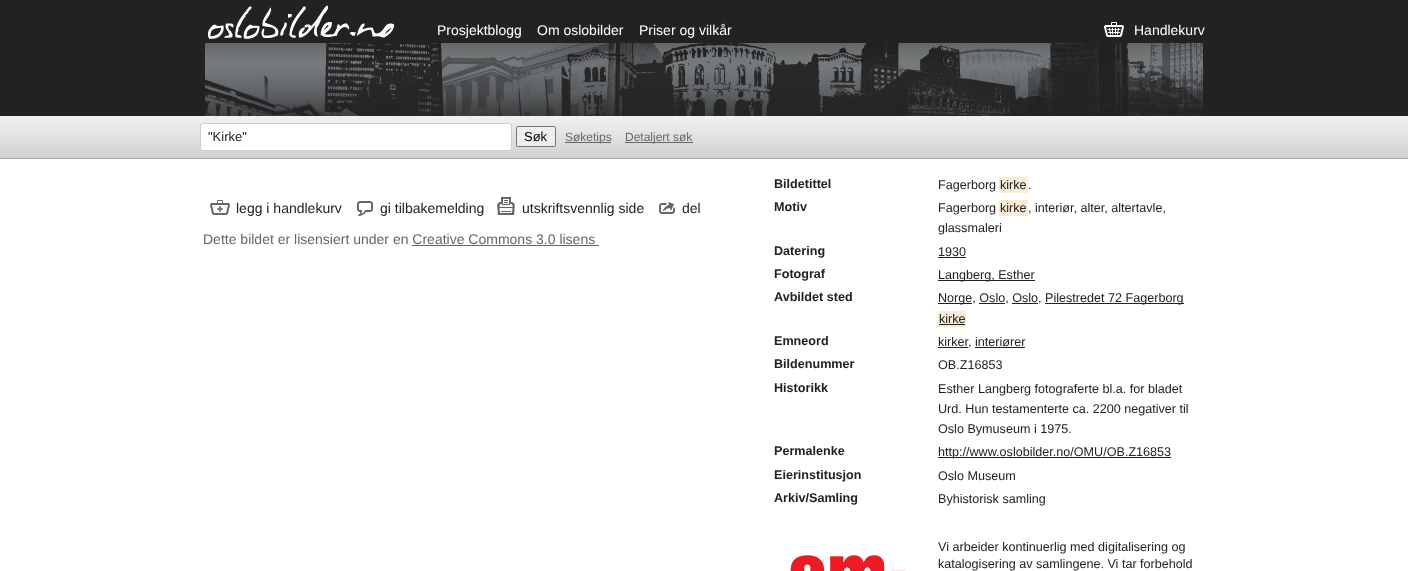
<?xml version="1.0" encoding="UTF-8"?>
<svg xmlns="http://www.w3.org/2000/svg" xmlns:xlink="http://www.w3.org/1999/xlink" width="1408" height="571">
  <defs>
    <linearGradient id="g1" gradientUnits="userSpaceOnUse" x1="704" y1="116" x2="704" y2="158"><stop offset="0" stop-color="#f1f1f1" /><stop offset="1" stop-color="#d1d1d1" /></linearGradient>
  </defs>
  <rect width="100%" height="100%" fill="#ffffff" />
  <rect width="1408" height="116" fill="#222222" />
  <image x="205" y="43" width="998" height="73" xlink:href="image1.png" />
  <image x="208" y="5" width="187" height="34" xlink:href="image2.png" />
  <image x="1104" y="22" width="20" height="15" xlink:href="image3.png" />
  <rect y="116" width="1408" height="42" fill="url(#g1)" />
  <rect y="158" width="1408" height="1" fill="#aaaaaa" />
  <rect x="200.5" y="123.5" width="311" height="27" rx="2.5" fill="#ffffff" stroke="#cccccc" />
  <rect x="516.5" y="126.5" width="39" height="20" rx="1.5" fill="#efefef" stroke="#767676" />
  <rect x="565" y="142" width="46" height="1" fill="#666666" />
  <rect x="625" y="142" width="68" height="1" fill="#666666" />
  <image x="210" y="200" width="20" height="15" xlink:href="image4.png" />
  <image x="357" y="201" width="16" height="15" xlink:href="image5.png" />
  <image x="497" y="197" width="18" height="18" xlink:href="image6.png" />
  <image x="659" y="202" width="16" height="12" xlink:href="image7.png" />
  <rect x="412" y="245" width="187" height="1" fill="#666666" />
  <rect x="999" y="177" width="29" height="16" fill="#faebd7" />
  <rect x="999" y="200" width="29" height="16" fill="#faebd7" />
  <rect x="938" y="257" width="28" height="1" fill="#222222" />
  <rect x="938" y="280" width="97" height="1" fill="#222222" />
  <rect x="938" y="303" width="34" height="1" fill="#222222" />
  <rect x="1045" y="303" width="139" height="1" fill="#222222" />
  <rect x="979" y="303" width="26" height="1" fill="#222222" />
  <rect x="1012" y="303" width="26" height="1" fill="#222222" />
  <rect x="938" y="311" width="28" height="16" fill="#faebd7" />
  <rect x="939" y="324" width="26" height="1" fill="#222222" />
  <rect x="938" y="347" width="30" height="1" fill="#222222" />
  <rect x="975" y="347" width="50" height="1" fill="#222222" />
  <rect x="938" y="457" width="233" height="1" fill="#222222" />
  <image x="790" y="555" width="115" height="16" xlink:href="image8.png" />
  <text x="437" y="35" style="font-family: Liberation Sans; font-size: 14px; fill: #ffffff">Prosjektblogg</text>
  <text x="537" y="35" style="font-family: Liberation Sans; font-size: 14px; fill: #ffffff">Om oslobilder</text>
  <text x="639" y="35" style="font-family: Liberation Sans; font-size: 14px; fill: #ffffff">Priser og vilkår</text>
  <text x="1134" y="35" style="font-family: Liberation Sans; font-size: 14px; fill: #ffffff">Handlekurv</text>
  <text x="208" y="141" style="font-family: Liberation Sans; font-size: 13px; fill: #222222">"Kirke"</text>
  <text x="524" y="141" style="font-family: Liberation Sans; font-size: 13px; fill: #000000">Søk</text>
  <text x="565" y="141" style="font-family: Liberation Sans; font-size: 12px; fill: #666666">Søketips</text>
  <text x="625" y="141" style="font-family: Liberation Sans; font-size: 12px; fill: #666666">Detaljert søk</text>
  <text x="236" y="213" style="font-family: Liberation Sans; font-size: 14px; fill: #222222">legg i handlekurv</text>
  <text x="380" y="213" style="font-family: Liberation Sans; font-size: 14px; fill: #222222">gi tilbakemelding</text>
  <text x="522" y="213" style="font-family: Liberation Sans; font-size: 14px; fill: #222222">utskriftsvennlig side</text>
  <text x="682" y="213" style="font-family: Liberation Sans; font-size: 14px; fill: #222222">del</text>
  <text x="203" y="244" style="font-family: Liberation Sans; font-size: 14px; fill: #666666">Dette bildet er lisensiert under en Creative Commons 3.0 lisens</text>
  <text x="774" y="188" style="font-family: Liberation Sans; font-size: 12.6px; font-weight: bold; fill: #222222">Bildetittel</text>
  <text x="938" y="189" style="font-family: Liberation Sans; font-size: 12.6px; fill: #222222">Fagerborg</text>
  <text x="1000" y="189" style="font-family: Liberation Sans; font-size: 12.6px; fill: #222222">kirke</text>
  <text x="1028" y="189" style="font-family: Liberation Sans; font-size: 12.6px; fill: #222222">.</text>
  <text x="774" y="211" style="font-family: Liberation Sans; font-size: 12.6px; font-weight: bold; fill: #222222">Motiv</text>
  <text x="938" y="212" style="font-family: Liberation Sans; font-size: 12.6px; fill: #222222">Fagerborg</text>
  <text x="1000" y="212" style="font-family: Liberation Sans; font-size: 12.6px; fill: #222222">kirke</text>
  <text x="1028" y="212" style="font-family: Liberation Sans; font-size: 12.6px; fill: #222222">, interiør, alter, altertavle,</text>
  <text x="938" y="232" style="font-family: Liberation Sans; font-size: 12.6px; fill: #222222">glassmaleri</text>
  <text x="774" y="255" style="font-family: Liberation Sans; font-size: 12.6px; font-weight: bold; fill: #222222">Datering</text>
  <text x="938" y="256" style="font-family: Liberation Sans; font-size: 12.6px; fill: #222222">1930</text>
  <text x="774" y="278" style="font-family: Liberation Sans; font-size: 12.6px; font-weight: bold; fill: #222222">Fotograf</text>
  <text x="938" y="279" style="font-family: Liberation Sans; font-size: 12.6px; fill: #222222">Langberg, Esther</text>
  <text x="774" y="301" style="font-family: Liberation Sans; font-size: 12.6px; font-weight: bold; fill: #222222">Avbildet sted</text>
  <text x="938" y="302" style="font-family: Liberation Sans; font-size: 12.6px; fill: #222222">Norge, Oslo, Oslo,</text>
  <text x="1045" y="302" style="font-family: Liberation Sans; font-size: 12.6px; fill: #222222">Pilestredet 72 Fagerborg</text>
  <text x="939" y="323" style="font-family: Liberation Sans; font-size: 12.6px; fill: #222222">kirke</text>
  <text x="774" y="345" style="font-family: Liberation Sans; font-size: 12.6px; font-weight: bold; fill: #222222">Emneord</text>
  <text x="938" y="346" style="font-family: Liberation Sans; font-size: 12.6px; fill: #222222">kirker</text>
  <text x="968" y="346" style="font-family: Liberation Sans; font-size: 12.6px; fill: #222222">, interiører</text>
  <text x="774" y="368" style="font-family: Liberation Sans; font-size: 12.6px; font-weight: bold; fill: #222222">Bildenummer</text>
  <text x="938" y="369" style="font-family: Liberation Sans; font-size: 12.6px; fill: #222222">OB.Z16853</text>
  <text x="774" y="392" style="font-family: Liberation Sans; font-size: 12.6px; font-weight: bold; fill: #222222">Historikk</text>
  <text x="938" y="393" style="font-family: Liberation Sans; font-size: 12.6px; fill: #222222">Esther Langberg fotograferte bl.a. for bladet</text>
  <text x="938" y="413" style="font-family: Liberation Sans; font-size: 12.6px; fill: #222222">Urd. Hun testamenterte ca. 2200 negativer til</text>
  <text x="938" y="433" style="font-family: Liberation Sans; font-size: 12.6px; fill: #222222">Oslo Bymuseum i 1975.</text>
  <text x="774" y="455" style="font-family: Liberation Sans; font-size: 12.6px; font-weight: bold; fill: #222222">Permalenke</text>
  <text x="938" y="456" style="font-family: Liberation Sans; font-size: 12.6px; fill: #222222">http://www.oslobilder.no/OMU/OB.Z16853</text>
  <text x="774" y="479" style="font-family: Liberation Sans; font-size: 12.6px; font-weight: bold; fill: #222222">Eierinstitusjon</text>
  <text x="938" y="480" style="font-family: Liberation Sans; font-size: 12.6px; fill: #222222">Oslo Museum</text>
  <text x="774" y="502" style="font-family: Liberation Sans; font-size: 12.6px; font-weight: bold; fill: #222222">Arkiv/Samling</text>
  <text x="938" y="503" style="font-family: Liberation Sans; font-size: 12.6px; fill: #222222">Byhistorisk samling</text>
  <text x="938" y="551" style="font-family: Liberation Sans; font-size: 12.6px; fill: #222222">Vi arbeider kontinuerlig med digitalisering og</text>
  <text x="938" y="568" style="font-family: Liberation Sans; font-size: 12.6px; fill: #222222">katalogisering av samlingene. Vi tar forbehold</text>
</svg>
